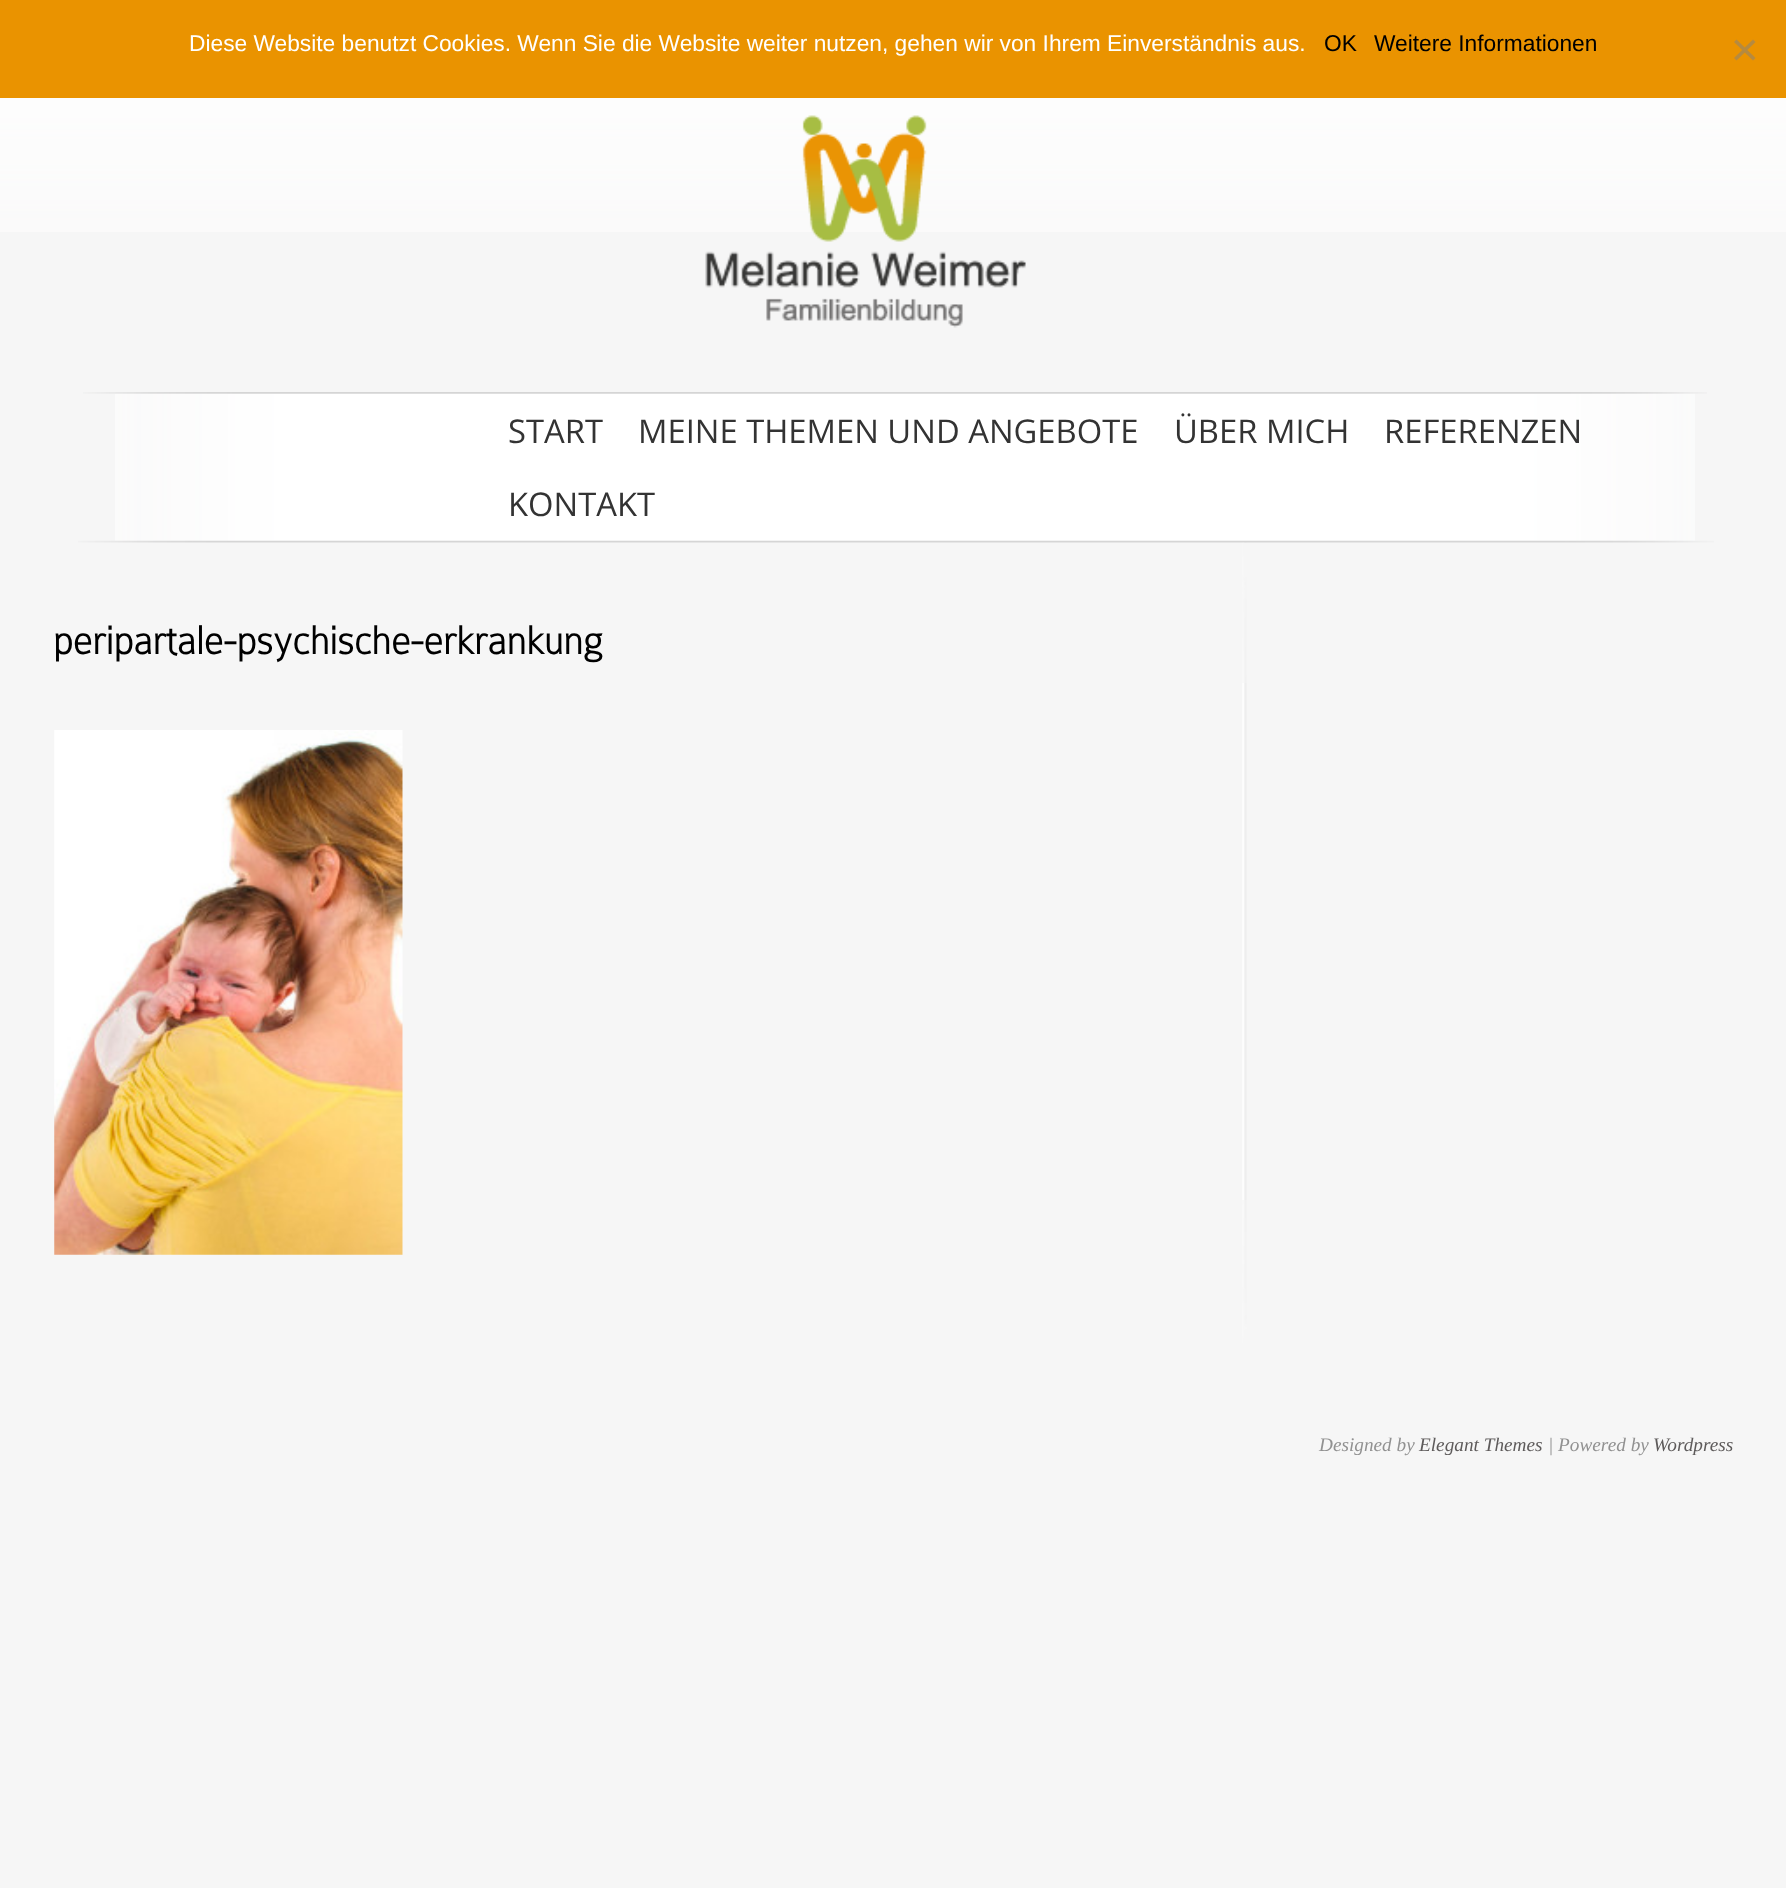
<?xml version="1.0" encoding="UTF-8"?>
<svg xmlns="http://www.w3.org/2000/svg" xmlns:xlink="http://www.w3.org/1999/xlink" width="1786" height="1888">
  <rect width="100%" height="100%" fill="#f6f6f6" />
  <image x="0" y="98" width="1786" height="134" xlink:href="image1.png" />
  <rect width="1786" height="98" fill="#ea9300" />
  <path d="M 1753 39.5 l 2.5 2.5 l -19 18.5 l -2.5 -2.5 z" fill="#b58a40" />
  <path d="M 1734 42 l 2.5 -2.5 l 19 18.5 l -2.5 2.5 z" fill="#b58a40" />
  <image x="705" y="115" width="321" height="213" xlink:href="image2.png" />
  <image x="115" y="393" width="1580" height="148" xlink:href="image3.png" />
  <image x="83" y="392" width="1624" height="2" xlink:href="image4.png" />
  <image x="1242" y="542" width="5" height="658" xlink:href="image6.png" />
  <image x="78" y="540" width="1636" height="3" xlink:href="image5.png" />
  <image x="1242" y="543" width="5" height="140" xlink:href="image7.png" />
  <image x="1242" y="1200" width="5" height="158" xlink:href="image8.png" />
  <image x="54" y="730" width="349" height="525" xlink:href="image9.png" />
  <text x="189" y="51" style="font-family: Liberation Sans; font-size: 22.75px; fill: #ffffff">Diese Website benutzt Cookies. Wenn Sie die Website weiter nutzen, gehen wir von Ihrem Einverständnis aus.</text>
  <text x="1324" y="51" style="font-family: Liberation Sans; font-size: 22.75px; fill: #000000">OK</text>
  <text x="1374" y="51" style="font-family: Liberation Sans; font-size: 22.75px; fill: #000000">Weitere Informationen</text>
  <text x="508" y="443" style="font-family: Open Sans; font-size: 32.75px; fill: #333333">START</text>
  <text x="638" y="443" style="font-family: Open Sans; font-size: 32.75px; fill: #333333">MEINE THEMEN UND ANGEBOTE</text>
  <text x="1174" y="443" style="font-family: Open Sans; font-size: 32.75px; fill: #333333">ÜBER MICH</text>
  <text x="1384" y="443" style="font-family: Open Sans; font-size: 32.75px; fill: #333333">REFERENZEN</text>
  <text x="508" y="516" style="font-family: Open Sans; font-size: 32.75px; fill: #333333">KONTAKT</text>
  <text x="53" y="654" style="font-family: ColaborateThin; font-size: 42px; font-weight: bold; fill: #000000">peripartale-psychische-erkrankung</text>
  <text x="1319" y="1451" style="font-family: Liberation Serif; font-size: 19.25px; font-style: italic; fill: #919191">Designed by</text>
  <text x="1419" y="1451" style="font-family: Liberation Serif; font-size: 19.25px; font-style: italic; fill: #5e5b5b">Elegant Themes</text>
  <text x="1548" y="1451" style="font-family: Liberation Serif; font-size: 19.25px; font-style: italic; fill: #919191">| Powered by</text>
  <text x="1653" y="1451" style="font-family: Liberation Serif; font-size: 19.25px; font-style: italic; fill: #5e5b5b">Wordpress</text>
</svg>
